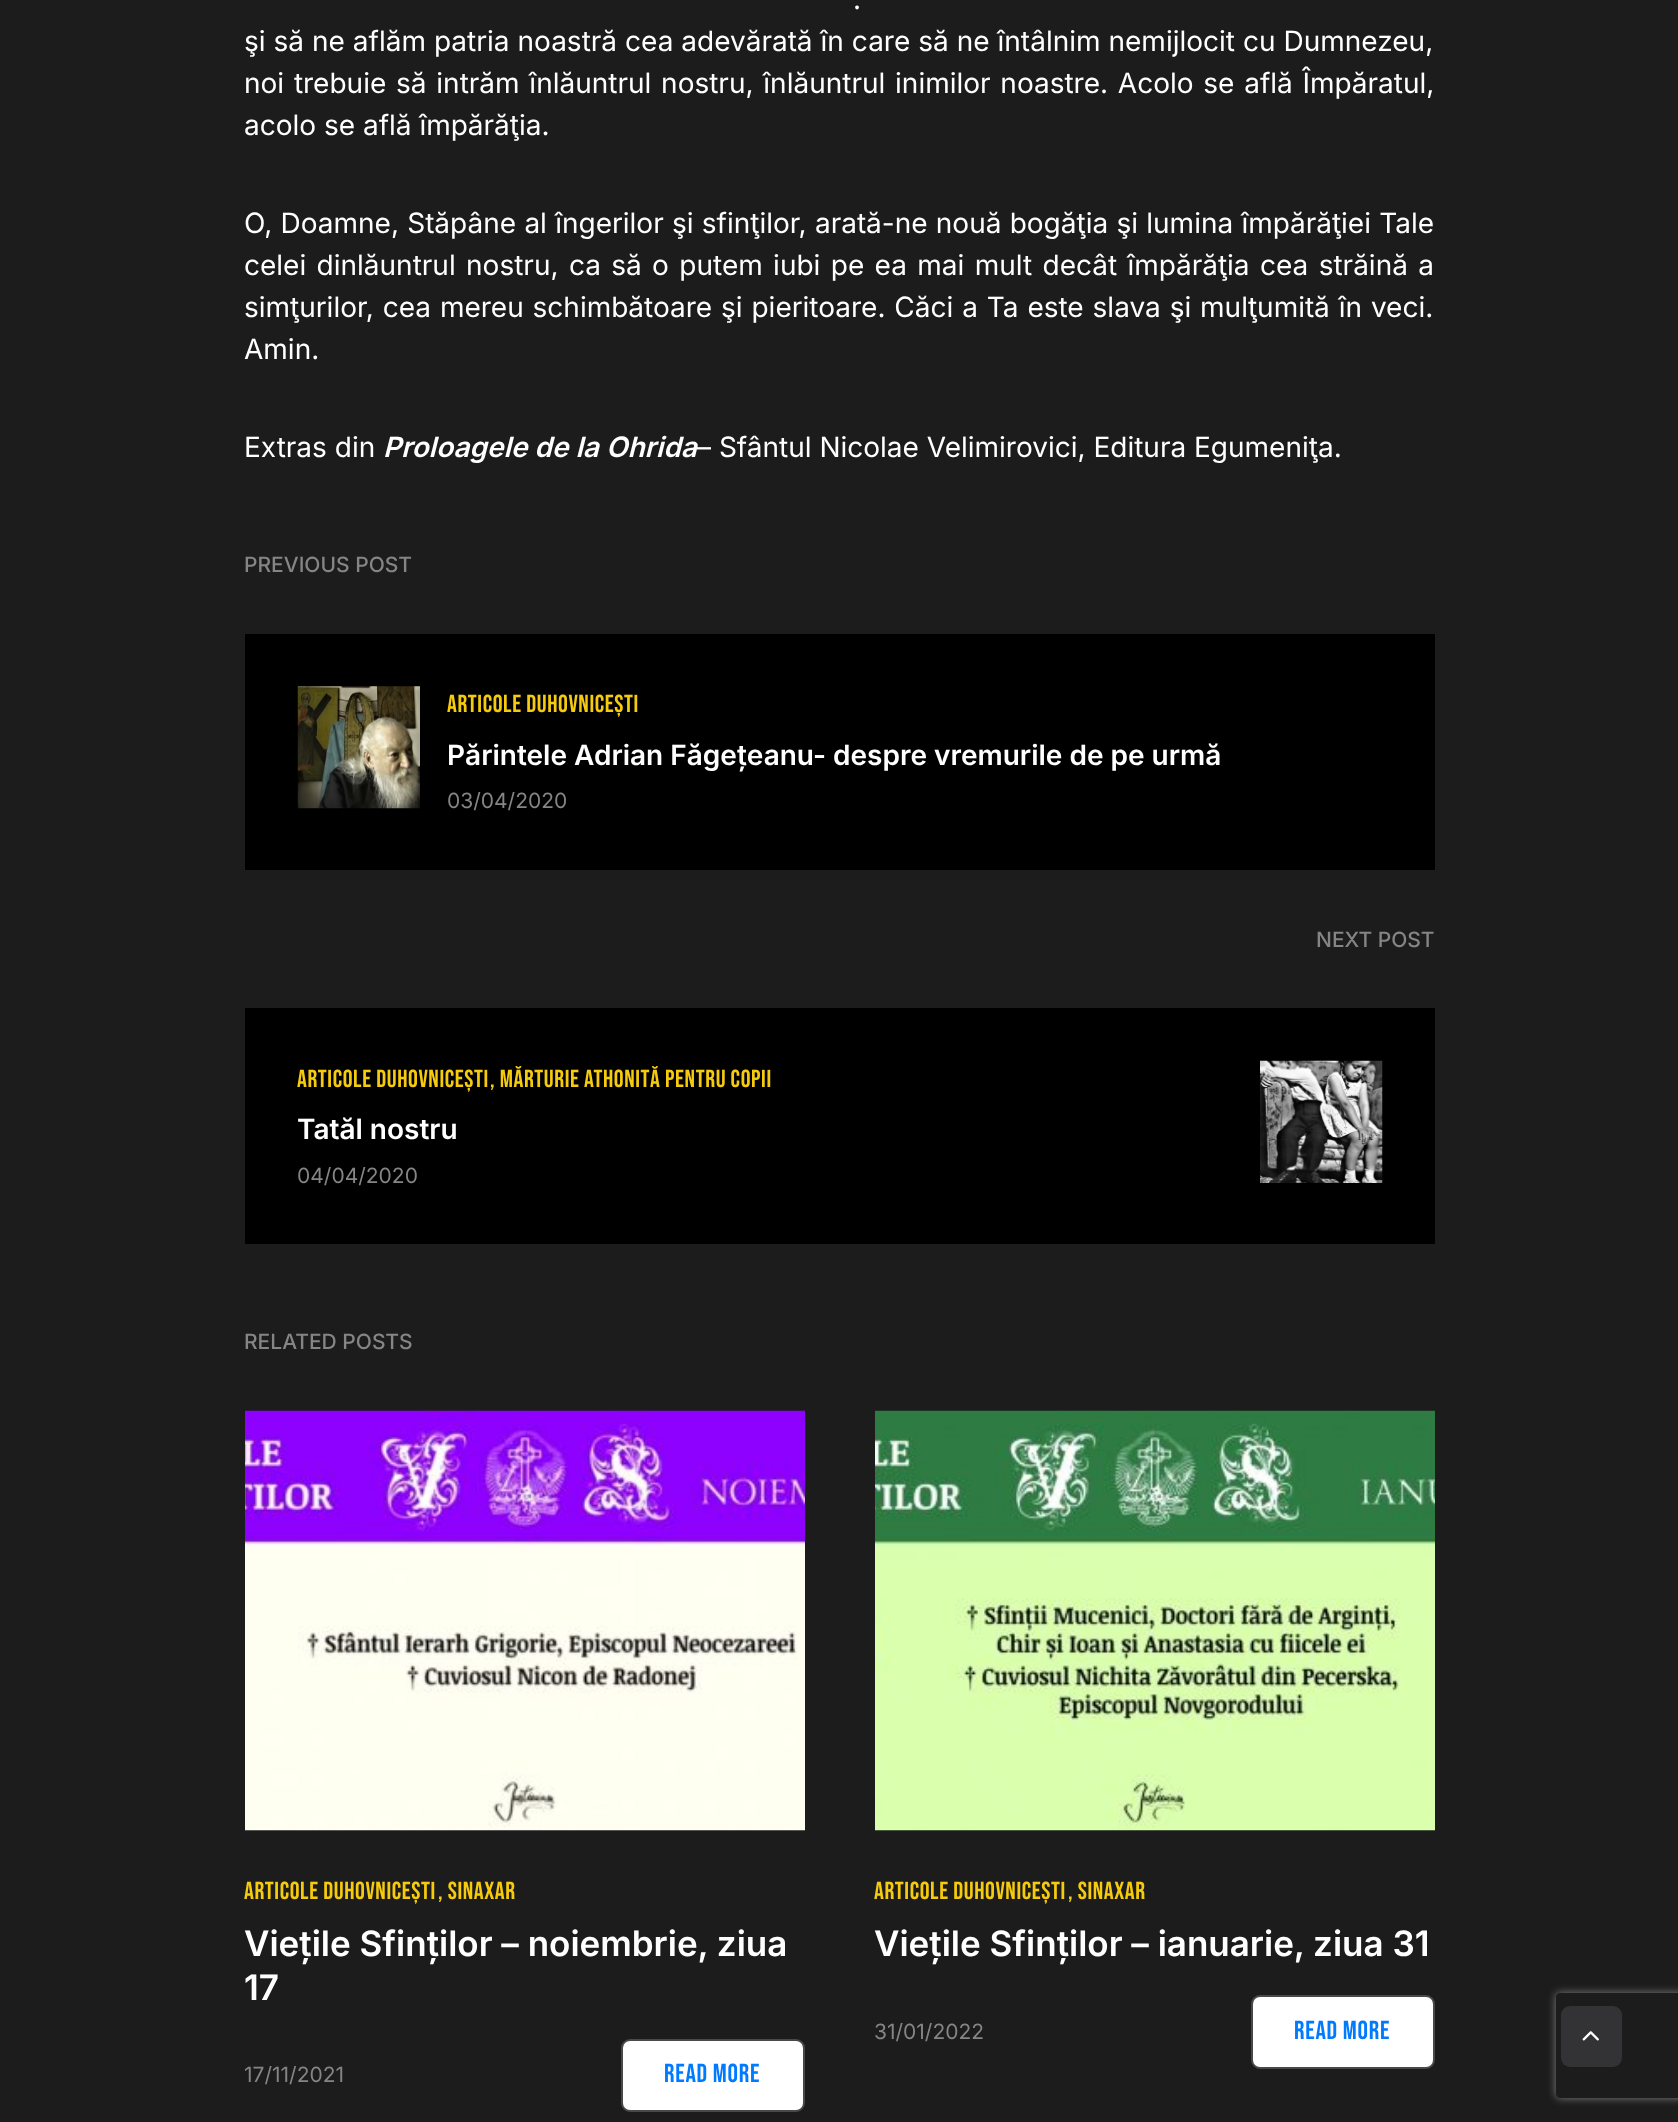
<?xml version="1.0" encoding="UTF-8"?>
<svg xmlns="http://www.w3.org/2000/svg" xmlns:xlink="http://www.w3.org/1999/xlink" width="1678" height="2122">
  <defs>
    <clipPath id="clip1"><path d="M 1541 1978 h 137 v 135 h -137 z m 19 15 h 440 c 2 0 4 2 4 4 v 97 c 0 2 -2 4 -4 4 h -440 c -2 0 -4 -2 -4 -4 v -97 c 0 -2 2 -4 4 -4 z" clip-rule="evenodd" /></clipPath>
  </defs>
  <rect width="100%" height="100%" fill="#1c1c1c" />
  <rect x="245" y="634" width="1190" height="236" fill="#000000" />
  <image x="297" y="686" width="123" height="123" xlink:href="image1.png" />
  <rect x="245" y="1008" width="1190" height="236" fill="#000000" />
  <image x="1260" y="1060" width="123" height="123" xlink:href="image2.png" />
  <image x="245" y="1410" width="560" height="421" xlink:href="image3.png" />
  <rect x="622" y="2040" width="182" height="71" rx="8" fill="#ffffff" stroke="#49494b" stroke-width="2" />
  <image x="875" y="1410" width="560" height="421" xlink:href="image4.png" />
  <rect x="1252" y="1996" width="182" height="72" rx="8" fill="#ffffff" stroke="#49494b" stroke-width="2" />
  <rect x="1561" y="2006" width="61" height="61" rx="9" fill="#333335" />
  <image x="1582" y="2031" width="17" height="10" xlink:href="image5.png" />
  <g clip-path="url(#clip1)">
    <rect x="1556" y="1993" width="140" height="105" rx="4" fill="#808080" filter="blur(4.5px)" />
  </g>
  <text x="853" y="9" word-spacing="1" style="font-family: Inter; font-size: 28px; fill: #ffffff">.</text>
  <text x="244" y="51" word-spacing="0.1" style="font-family: Inter; font-size: 28px; fill: #ffffff">şi să ne aflăm patria noastră cea adevărată în care să ne întâlnim nemijlocit cu Dumnezeu,</text>
  <text x="244" y="93" word-spacing="1.9" style="font-family: Inter; font-size: 28px; fill: #ffffff">noi trebuie să intrăm înlăuntrul nostru, înlăuntrul inimilor noastre. Acolo se află Împăratul,</text>
  <text x="244" y="135" style="font-family: Inter; font-size: 28px; fill: #ffffff">acolo se află împărăţia.</text>
  <text x="244" y="233" word-spacing="0.4" style="font-family: Inter; font-size: 28px; fill: #ffffff">O, Doamne, Stăpâne al îngerilor şi sfinţilor, arată-ne nouă bogăţia şi lumina împărăţiei Tale</text>
  <text x="244" y="275" word-spacing="2.5" style="font-family: Inter; font-size: 28px; fill: #ffffff">celei dinlăuntrul nostru, ca să o putem iubi pe ea mai mult decât împărăţia cea străină a</text>
  <text x="244" y="317" word-spacing="1" style="font-family: Inter; font-size: 28px; fill: #ffffff">simţurilor, cea mereu schimbătoare şi pieritoare. Căci a Ta este slava şi mulţumită în veci.</text>
  <text x="244" y="359" style="font-family: Inter; font-size: 28px; fill: #ffffff">Amin.</text>
  <text x="244" y="457" style="font-family: Inter; font-size: 28px; fill: #ffffff">Extras din</text>
  <text x="383" y="457" style="font-family: Inter; font-size: 28px; font-weight: 600; font-style: italic; fill: #ffffff">Proloagele de la Ohrida</text>
  <text x="697" y="457" style="font-family: Inter; font-size: 28px; fill: #ffffff">– Sfântul Nicolae Velimirovici, Editura Egumeniţa.</text>
  <text x="244" y="572" style="font-family: Inter; font-size: 21px; font-weight: 500; fill: #858585">PREVIOUS POST</text>
  <text x="447" y="712" style="font-family: Bebas Neue; font-size: 24.5px; letter-spacing: 0.6px; fill: #f6cb0d">ARTICOLE DUHOVNICEȘTI</text>
  <text x="447" y="765" style="font-family: Inter; font-size: 28px; font-weight: 600; fill: #ffffff">Părintele Adrian Făgețeanu- despre vremurile de pe urmă</text>
  <text x="447" y="808" style="font-family: Inter; font-size: 21px; fill: #858585">03/04/2020</text>
  <text x="1316" y="947" style="font-family: Inter; font-size: 21px; font-weight: 500; fill: #858585">NEXT POST</text>
  <text x="297" y="1087" style="font-family: Bebas Neue; font-size: 24.5px; letter-spacing: 0.6px; fill: #f6cb0d">ARTICOLE DUHOVNICEȘTI</text>
  <text x="490" y="1087" style="font-family: Bebas Neue; font-size: 24.5px; letter-spacing: 0.6px; fill: #f6cb0d">, MĂRTURIE ATHONITĂ PENTRU COPII</text>
  <text x="297" y="1139" style="font-family: Inter; font-size: 28px; font-weight: 600; fill: #ffffff">Tatăl nostru</text>
  <text x="297" y="1183" style="font-family: Inter; font-size: 21px; fill: #858585">04/04/2020</text>
  <text x="244" y="1349" style="font-family: Inter; font-size: 21px; font-weight: 500; fill: #858585">RELATED POSTS</text>
  <text x="244" y="1899" style="font-family: Bebas Neue; font-size: 24.5px; letter-spacing: 0.6px; fill: #f6cb0d">ARTICOLE DUHOVNICEȘTI</text>
  <text x="438" y="1899" style="font-family: Bebas Neue; font-size: 24.5px; letter-spacing: 0.6px; fill: #f6cb0d">, SINAXAR</text>
  <text x="244" y="1956" style="font-family: Inter; font-size: 35px; font-weight: 600; fill: #ffffff">Viețile Sfinților – noiembrie, ziua</text>
  <text x="244" y="2000" style="font-family: Inter; font-size: 35px; font-weight: 600; fill: #ffffff">17</text>
  <text x="244" y="2082" style="font-family: Inter; font-size: 21px; fill: #858585">17/11/2021</text>
  <text x="664" y="2082" style="font-family: Bebas Neue; font-size: 26px; letter-spacing: 0.75px; fill: #007aff">Read More</text>
  <text x="874" y="1899" style="font-family: Bebas Neue; font-size: 24.5px; letter-spacing: 0.6px; fill: #f6cb0d">ARTICOLE DUHOVNICEȘTI</text>
  <text x="1068" y="1899" style="font-family: Bebas Neue; font-size: 24.5px; letter-spacing: 0.6px; fill: #f6cb0d">, SINAXAR</text>
  <text x="874" y="1956" style="font-family: Inter; font-size: 35px; font-weight: 600; fill: #ffffff">Viețile Sfinților – ianuarie, ziua 31</text>
  <text x="874" y="2039" style="font-family: Inter; font-size: 21px; fill: #858585">31/01/2022</text>
  <text x="1294" y="2039" style="font-family: Bebas Neue; font-size: 26px; letter-spacing: 0.75px; fill: #007aff">Read More</text>
</svg>
